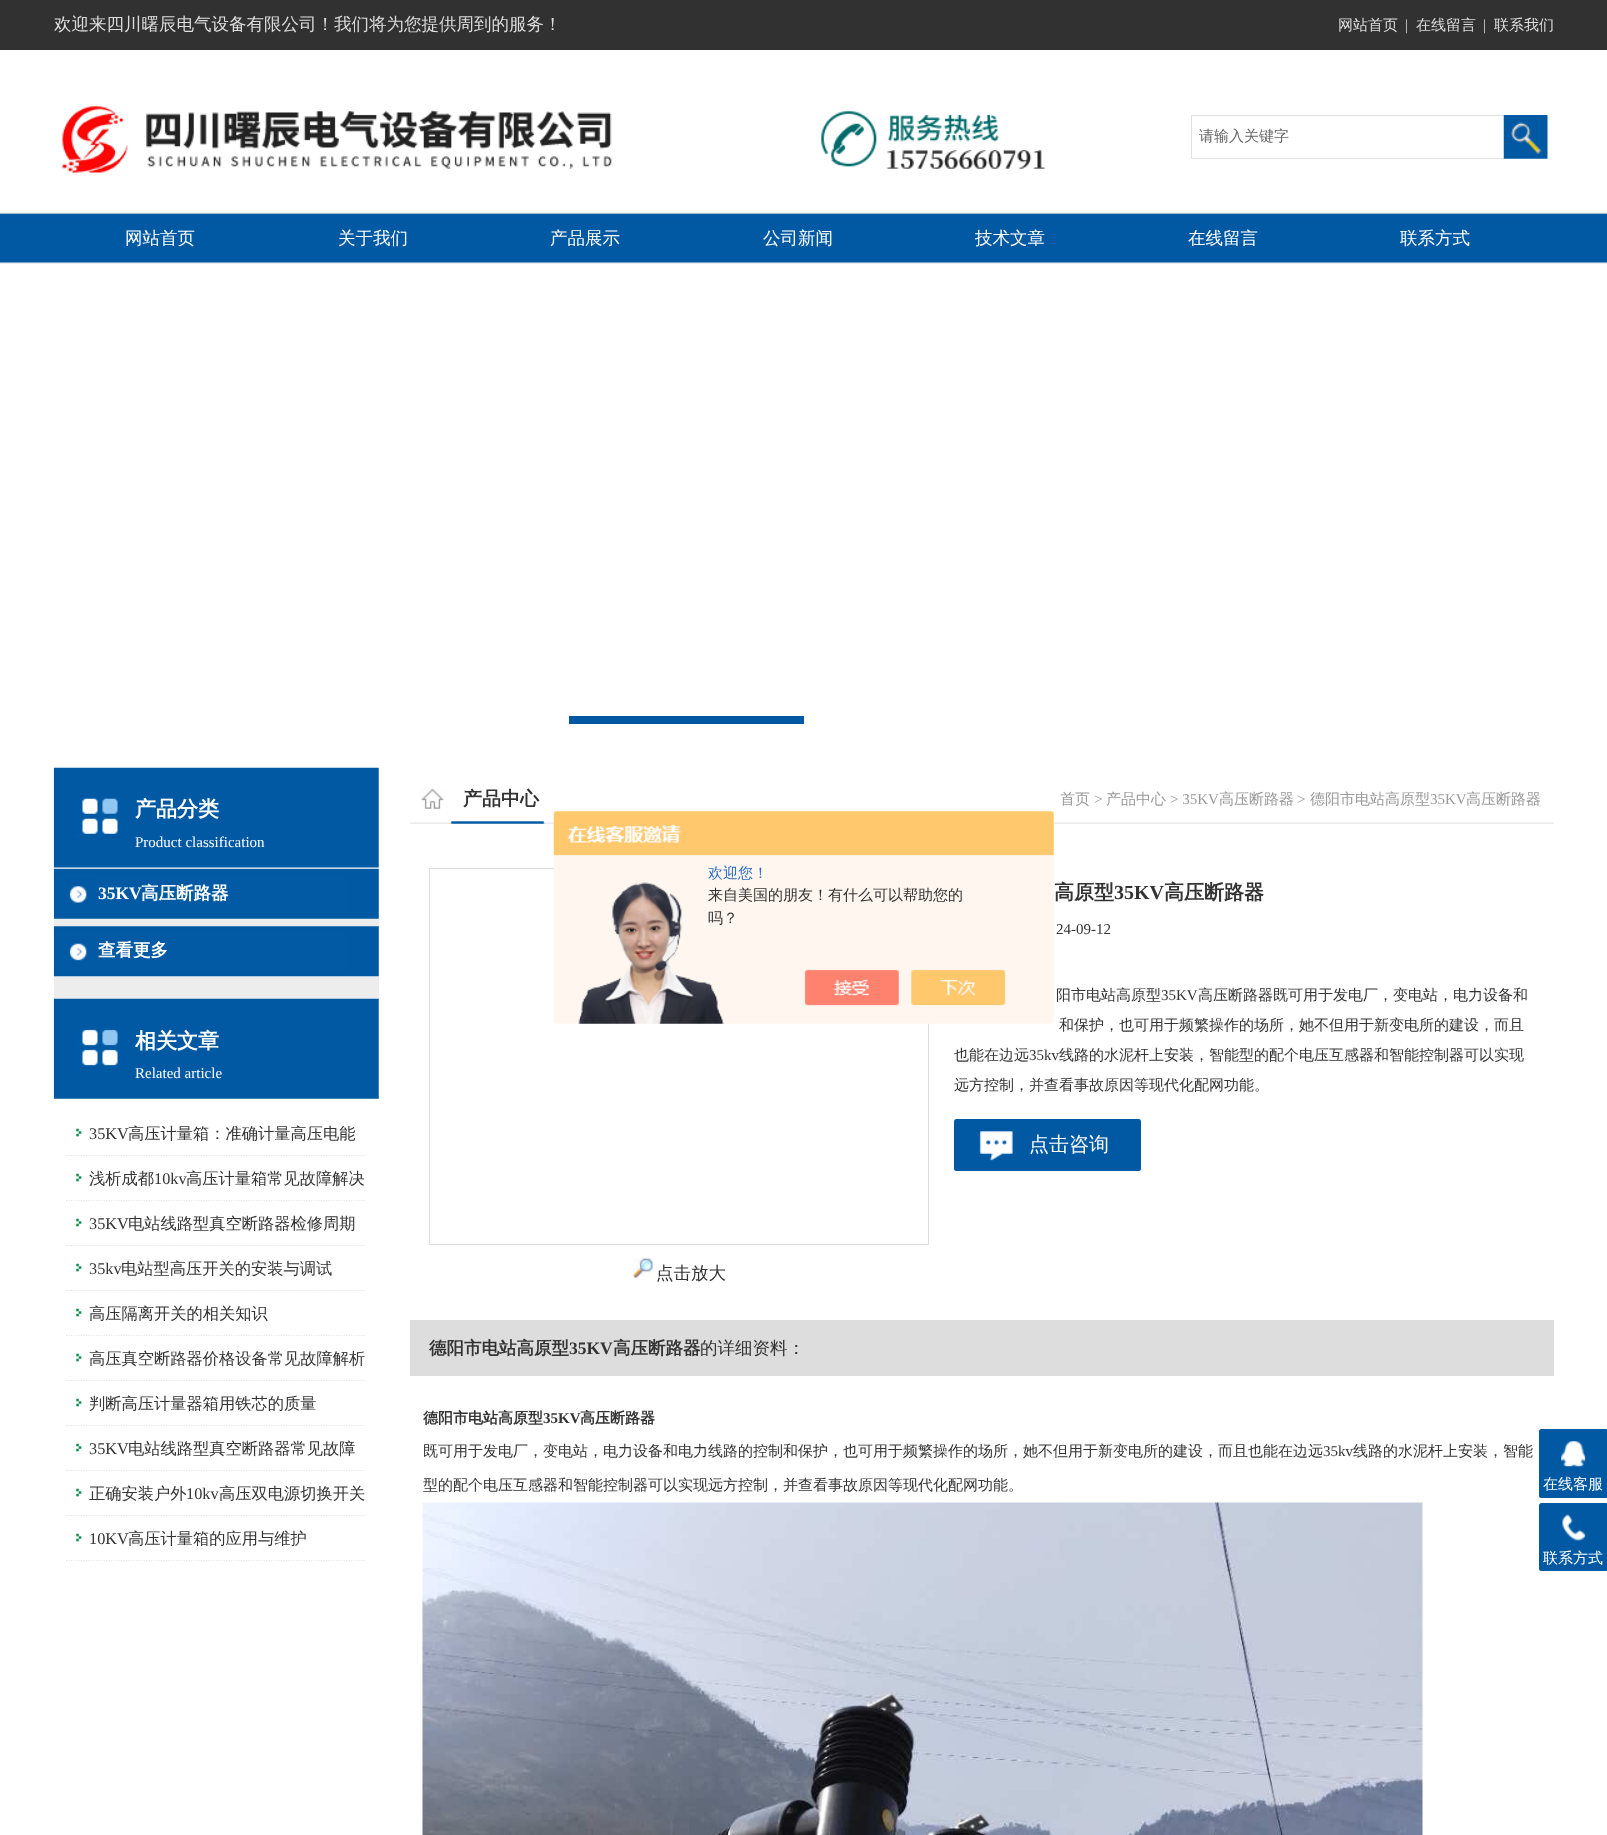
<?xml version="1.0" encoding="UTF-8"?>
<svg xmlns="http://www.w3.org/2000/svg" xmlns:xlink="http://www.w3.org/1999/xlink" width="1607" height="1835">
  <rect width="100%" height="100%" fill="#ffffff" />
  <rect width="1607" height="50" fill="#313131" />
  <image x="62" y="106" width="984" height="67" xlink:href="image1.png" />
  <rect x="1191" y="115" width="313" height="1" fill="#e1e1e1" />
  <rect x="1191" y="158" width="313" height="1" fill="#e1e1e1" />
  <rect x="1191" y="115" width="1" height="44" fill="#e1e1e1" />
  <image x="1503" y="115" width="45" height="44" xlink:href="image2.png" />
  <image x="0" y="212" width="1607" height="52" xlink:href="image3.png" />
  <rect x="569" y="716" width="235" height="8" fill="#0159a3" />
  <image x="53" y="767" width="326" height="101" xlink:href="image4.png" />
  <rect x="54" y="869" width="325" height="130" fill="#ededed" />
  <image x="53" y="868" width="326" height="51" xlink:href="image5.png" />
  <image x="53" y="926" width="326" height="51" xlink:href="image6.png" />
  <image x="53" y="998" width="326" height="101" xlink:href="image7.png" />
  <image x="76" y="1128" width="6" height="9" xlink:href="image8.png" />
  <path d="M 66 1155.5 h 300" fill="none" stroke="#e6e6e6" stroke-width="1.2" stroke-dasharray="1.25 1.25" />
  <image x="76" y="1173" width="6" height="9" xlink:href="image8.png" />
  <path d="M 66 1200.5 h 300" fill="none" stroke="#e6e6e6" stroke-width="1.2" stroke-dasharray="1.25 1.25" />
  <image x="76" y="1218" width="6" height="9" xlink:href="image8.png" />
  <path d="M 66 1245.5 h 300" fill="none" stroke="#e6e6e6" stroke-width="1.2" stroke-dasharray="1.25 1.25" />
  <image x="76" y="1263" width="6" height="9" xlink:href="image8.png" />
  <path d="M 66 1290.5 h 300" fill="none" stroke="#e6e6e6" stroke-width="1.2" stroke-dasharray="1.25 1.25" />
  <image x="76" y="1308" width="6" height="9" xlink:href="image8.png" />
  <path d="M 66 1335.5 h 300" fill="none" stroke="#e6e6e6" stroke-width="1.2" stroke-dasharray="1.25 1.25" />
  <image x="76" y="1353" width="6" height="9" xlink:href="image8.png" />
  <path d="M 66 1380.5 h 300" fill="none" stroke="#e6e6e6" stroke-width="1.2" stroke-dasharray="1.25 1.25" />
  <image x="76" y="1398" width="6" height="9" xlink:href="image8.png" />
  <path d="M 66 1425.5 h 300" fill="none" stroke="#e6e6e6" stroke-width="1.2" stroke-dasharray="1.25 1.25" />
  <image x="76" y="1443" width="6" height="9" xlink:href="image8.png" />
  <path d="M 66 1470.5 h 300" fill="none" stroke="#e6e6e6" stroke-width="1.2" stroke-dasharray="1.25 1.25" />
  <image x="76" y="1488" width="6" height="9" xlink:href="image8.png" />
  <path d="M 66 1515.5 h 300" fill="none" stroke="#e6e6e6" stroke-width="1.2" stroke-dasharray="1.25 1.25" />
  <image x="76" y="1533" width="6" height="9" xlink:href="image8.png" />
  <path d="M 66 1560.5 h 300" fill="none" stroke="#e6e6e6" stroke-width="1.2" stroke-dasharray="1.25 1.25" />
  <image x="410" y="788" width="1144" height="36" xlink:href="image9.png" />
  <rect x="954" y="1119" width="187" height="52" rx="2.5" fill="#0159a3" />
  <image x="979" y="1131" width="34" height="30" xlink:href="image10.png" />
  <rect x="429.5" y="868.5" width="499" height="376" fill="none" stroke="#dddddd" />
  <image x="632" y="1257" width="21" height="21" xlink:href="image11.png" />
  <rect x="410" y="1320" width="1144" height="56" fill="#dddddd" />
  <image x="422" y="1502" width="1001" height="333" xlink:href="image12.png" />
  <image x="553" y="811" width="501" height="213" xlink:href="image13.png" />
  <rect x="1539" y="1429" width="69" height="69" rx="2.5" fill="#0159a3" />
  <image x="1561" y="1441" width="25" height="26" xlink:href="image14.png" />
  <rect x="1539" y="1503" width="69" height="68" rx="2.5" fill="#0159a3" />
  <image x="1562" y="1514" width="24" height="27" xlink:href="image15.png" />
  <text x="54" y="30" style="font-family: WenQuanYi Zen Hei; font-size: 17.5px; font-weight: 500; fill: #dddddd">欢迎来四川曙辰电气设备有限公司！我们将为您提供周到的服务！</text>
  <text x="1338" y="30" style="font-family: WenQuanYi Zen Hei; font-size: 15px; font-weight: 500; fill: #dddddd">网站首页</text>
  <text x="1405" y="30" style="font-family: Liberation Serif; font-size: 15px; fill: #dddddd">|</text>
  <text x="1416" y="30" style="font-family: WenQuanYi Zen Hei; font-size: 15px; font-weight: 500; fill: #dddddd">在线留言</text>
  <text x="1483" y="30" style="font-family: Liberation Serif; font-size: 15px; fill: #dddddd">|</text>
  <text x="1494" y="30" style="font-family: WenQuanYi Zen Hei; font-size: 15px; font-weight: 500; fill: #dddddd">联系我们</text>
  <text x="1199" y="141" style="font-family: WenQuanYi Zen Hei; font-size: 15px; font-weight: 500; fill: #666666">请输入关键字</text>
  <text x="125" y="244" style="font-family: WenQuanYi Zen Hei; font-size: 17.5px; font-weight: 500; fill: #ffffff">网站首页</text>
  <text x="338" y="244" style="font-family: WenQuanYi Zen Hei; font-size: 17.5px; font-weight: 500; fill: #ffffff">关于我们</text>
  <text x="550" y="244" style="font-family: WenQuanYi Zen Hei; font-size: 17.5px; font-weight: 500; fill: #ffffff">产品展示</text>
  <text x="763" y="244" style="font-family: WenQuanYi Zen Hei; font-size: 17.5px; font-weight: 500; fill: #ffffff">公司新闻</text>
  <text x="975" y="244" style="font-family: WenQuanYi Zen Hei; font-size: 17.5px; font-weight: 500; fill: #ffffff">技术文章</text>
  <text x="1188" y="244" style="font-family: WenQuanYi Zen Hei; font-size: 17.5px; font-weight: 500; fill: #ffffff">在线留言</text>
  <text x="1400" y="244" style="font-family: WenQuanYi Zen Hei; font-size: 17.5px; font-weight: 500; fill: #ffffff">联系方式</text>
  <text x="135" y="816" style="font-family: WenQuanYi Zen Hei; font-size: 21px; font-weight: bold; fill: #ffffff">产品分类</text>
  <text x="135" y="847" style="font-family: Liberation Serif; font-size: 15px; fill: #ffffff">Product classification</text>
  <text x="98" y="899" style="font-family: Liberation Serif; font-size: 17.5px; font-weight: bold; fill: #ffffff">35KV</text>
  <text x="141" y="899" style="font-family: WenQuanYi Zen Hei; font-size: 17.5px; font-weight: bold; fill: #ffffff">高压断路器</text>
  <text x="98" y="956" style="font-family: WenQuanYi Zen Hei; font-size: 17.5px; font-weight: bold; fill: #ffffff">查看更多</text>
  <text x="135" y="1048" style="font-family: WenQuanYi Zen Hei; font-size: 21px; font-weight: bold; fill: #ffffff">相关文章</text>
  <text x="135" y="1078" style="font-family: Liberation Serif; font-size: 15px; fill: #ffffff">Related article</text>
  <text x="89" y="1139" style="font-family: Liberation Serif; font-size: 16.25px; fill: #333333">35KV</text>
  <text x="128" y="1139" style="font-family: WenQuanYi Zen Hei; font-size: 16.25px; font-weight: 500; fill: #333333">高压计量箱：准确计量高压电能</text>
  <text x="89" y="1184" style="font-family: WenQuanYi Zen Hei; font-size: 16.25px; font-weight: 500; fill: #333333">浅析成都</text>
  <text x="154" y="1184" style="font-family: Liberation Serif; font-size: 16.25px; fill: #333333">10kv</text>
  <text x="186" y="1184" style="font-family: WenQuanYi Zen Hei; font-size: 16.25px; font-weight: 500; fill: #333333">高压计量箱常见故障解决</text>
  <text x="89" y="1229" style="font-family: Liberation Serif; font-size: 16.25px; fill: #333333">35KV</text>
  <text x="128" y="1229" style="font-family: WenQuanYi Zen Hei; font-size: 16.25px; font-weight: 500; fill: #333333">电站线路型真空断路器检修周期</text>
  <text x="89" y="1274" style="font-family: Liberation Serif; font-size: 16.25px; fill: #333333">35kv</text>
  <text x="121" y="1274" style="font-family: WenQuanYi Zen Hei; font-size: 16.25px; font-weight: 500; fill: #333333">电站型高压开关的安装与调试</text>
  <text x="89" y="1319" style="font-family: WenQuanYi Zen Hei; font-size: 16.25px; font-weight: 500; fill: #333333">高压隔离开关的相关知识</text>
  <text x="89" y="1364" style="font-family: WenQuanYi Zen Hei; font-size: 16.25px; font-weight: 500; fill: #333333">高压真空断路器价格设备常见故障解析</text>
  <text x="89" y="1409" style="font-family: WenQuanYi Zen Hei; font-size: 16.25px; font-weight: 500; fill: #333333">判断高压计量器箱用铁芯的质量</text>
  <text x="89" y="1454" style="font-family: Liberation Serif; font-size: 16.25px; fill: #333333">35KV</text>
  <text x="128" y="1454" style="font-family: WenQuanYi Zen Hei; font-size: 16.25px; font-weight: 500; fill: #333333">电站线路型真空断路器常见故障</text>
  <text x="89" y="1499" style="font-family: WenQuanYi Zen Hei; font-size: 16.25px; font-weight: 500; fill: #333333">正确安装户外</text>
  <text x="186" y="1499" style="font-family: Liberation Serif; font-size: 16.25px; fill: #333333">10kv</text>
  <text x="219" y="1499" style="font-family: WenQuanYi Zen Hei; font-size: 16.25px; font-weight: 500; fill: #333333">高压双电源切换开关</text>
  <text x="89" y="1544" style="font-family: Liberation Serif; font-size: 16.25px; fill: #333333">10KV</text>
  <text x="128" y="1544" style="font-family: WenQuanYi Zen Hei; font-size: 16.25px; font-weight: 500; fill: #333333">高压计量箱的应用与维护</text>
  <text x="463" y="805" style="font-family: WenQuanYi Zen Hei; font-size: 19px; font-weight: bold; fill: #333333">产品中心</text>
  <text x="1060" y="804" style="font-family: WenQuanYi Zen Hei; font-size: 15px; font-weight: 500; fill: #999999">首页</text>
  <text x="1094" y="804" style="font-family: Liberation Serif; font-size: 15px; fill: #999999">&gt;</text>
  <text x="1106" y="804" style="font-family: WenQuanYi Zen Hei; font-size: 15px; font-weight: 500; fill: #999999">产品中心</text>
  <text x="1170" y="804" style="font-family: Liberation Serif; font-size: 15px; fill: #999999">&gt; 35KV</text>
  <text x="1219" y="804" style="font-family: WenQuanYi Zen Hei; font-size: 15px; font-weight: 500; fill: #999999">高压断路器</text>
  <text x="1297" y="804" style="font-family: Liberation Serif; font-size: 15px; fill: #999999">&gt;</text>
  <text x="1310" y="804" style="font-family: WenQuanYi Zen Hei; font-size: 15px; font-weight: 500; fill: #999999">德阳市电站高原型</text>
  <text x="1430" y="804" style="font-family: Liberation Serif; font-size: 15px; fill: #999999">35KV</text>
  <text x="1466" y="804" style="font-family: WenQuanYi Zen Hei; font-size: 15px; font-weight: 500; fill: #999999">高压断路器</text>
  <text x="1054" y="899" style="font-family: WenQuanYi Zen Hei; font-size: 20px; font-weight: bold; fill: #333333">高原型</text>
  <text x="1114" y="899" style="font-family: Liberation Serif; font-size: 20px; font-weight: bold; fill: #333333">35KV</text>
  <text x="1164" y="899" style="font-family: WenQuanYi Zen Hei; font-size: 20px; font-weight: bold; fill: #333333">高压断路器</text>
  <text x="1056" y="934" style="font-family: Liberation Serif; font-size: 15px; fill: #333333">24-09-12</text>
  <text x="1056" y="1000" style="font-family: WenQuanYi Zen Hei; font-size: 15px; font-weight: 500; fill: #333333">阳市电站高原型</text>
  <text x="1161" y="1000" style="font-family: Liberation Serif; font-size: 15px; fill: #333333">35KV</text>
  <text x="1198" y="1000" style="font-family: WenQuanYi Zen Hei; font-size: 15px; font-weight: 500; fill: #333333">高压断路器既可用于发电厂，变电站，电力设备和</text>
  <text x="1059" y="1030" style="font-family: WenQuanYi Zen Hei; font-size: 15px; font-weight: 500; fill: #333333">和保护，也可用于频繁操作的场所，她不但用于新变电所的建设，而且</text>
  <text x="954" y="1060" style="font-family: WenQuanYi Zen Hei; font-size: 15px; font-weight: 500; fill: #333333">也能在边远</text>
  <text x="1029" y="1060" style="font-family: Liberation Serif; font-size: 15px; fill: #333333">35kv</text>
  <text x="1059" y="1060" style="font-family: WenQuanYi Zen Hei; font-size: 15px; font-weight: 500; fill: #333333">线路的水泥杆上安装，智能型的配个电压互感器和智能控制器可以实现</text>
  <text x="954" y="1090" style="font-family: WenQuanYi Zen Hei; font-size: 15px; font-weight: 500; fill: #333333">远方控制，并查看事故原因等现代化配网功能。</text>
  <text x="1029" y="1151" style="font-family: WenQuanYi Zen Hei; font-size: 20px; font-weight: 500; fill: #ffffff">点击咨询</text>
  <text x="656" y="1279" style="font-family: WenQuanYi Zen Hei; font-size: 17.5px; font-weight: 500; fill: #333333">点击放大</text>
  <text x="429" y="1354" style="font-family: WenQuanYi Zen Hei; font-size: 17.5px; font-weight: bold; fill: #333333">德阳市电站高原型</text>
  <text x="569" y="1354" style="font-family: Liberation Serif; font-size: 17.5px; font-weight: bold; fill: #333333">35KV</text>
  <text x="613" y="1354" style="font-family: WenQuanYi Zen Hei; font-size: 17.5px; font-weight: bold; fill: #333333">高压断路器</text>
  <text x="700" y="1354" style="font-family: WenQuanYi Zen Hei; font-size: 17.5px; font-weight: 500; fill: #333333">的详细资料：</text>
  <text x="423" y="1423" style="font-family: WenQuanYi Zen Hei; font-size: 15px; font-weight: bold; fill: #333333">德阳市电站高原型</text>
  <text x="543" y="1423" style="font-family: Liberation Serif; font-size: 15px; font-weight: bold; fill: #333333">35KV</text>
  <text x="580" y="1423" style="font-family: WenQuanYi Zen Hei; font-size: 15px; font-weight: bold; fill: #333333">高压断路器</text>
  <text x="423" y="1456" style="font-family: WenQuanYi Zen Hei; font-size: 15px; font-weight: 500; fill: #333333">既可用于发电厂，变电站，电力设备和电力线路的控制和保护，也可用于频繁操作的场所，她不但用于新变电所的建设，而且也能在边远</text>
  <text x="1323" y="1456" style="font-family: Liberation Serif; font-size: 15px; fill: #333333">35kv</text>
  <text x="1353" y="1456" style="font-family: WenQuanYi Zen Hei; font-size: 15px; font-weight: 500; fill: #333333">线路的水泥杆上安装，智能</text>
  <text x="423" y="1490" style="font-family: WenQuanYi Zen Hei; font-size: 15px; font-weight: 500; fill: #333333">型的配个电压互感器和智能控制器可以实现远方控制，并查看事故原因等现代化配网功能。</text>
  <text x="708" y="878" style="font-family: WenQuanYi Zen Hei; font-size: 15px; font-weight: 500; fill: #2e6ec6">欢迎您！</text>
  <text x="708" y="900" style="font-family: WenQuanYi Zen Hei; font-size: 15px; font-weight: 500; fill: #333333">来自美国的朋友！有什么可以帮助您的</text>
  <text x="708" y="923" style="font-family: WenQuanYi Zen Hei; font-size: 15px; font-weight: 500; fill: #333333">吗？</text>
  <text x="1543" y="1489" style="font-family: WenQuanYi Zen Hei; font-size: 15px; font-weight: 500; fill: #ffffff">在线客服</text>
  <text x="1543" y="1563" style="font-family: WenQuanYi Zen Hei; font-size: 15px; font-weight: 500; fill: #ffffff">联系方式</text>
</svg>
